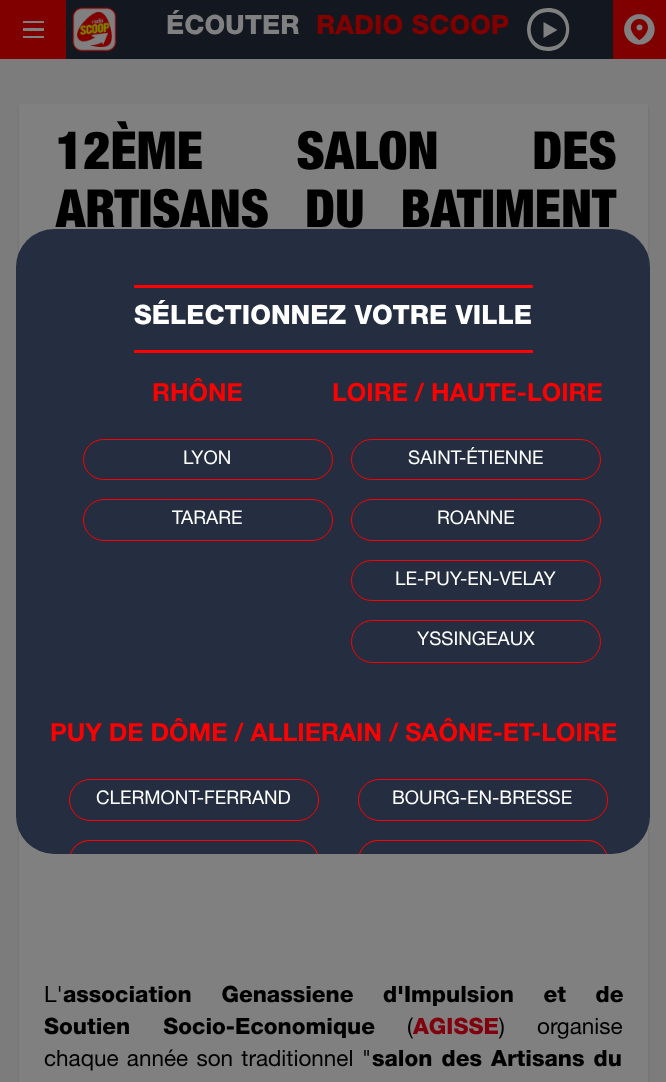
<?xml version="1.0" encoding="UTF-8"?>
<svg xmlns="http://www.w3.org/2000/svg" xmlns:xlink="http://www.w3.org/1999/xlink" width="666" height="1082">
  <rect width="100%" height="100%" fill="#7c7c7c" />
  <rect width="666" height="59" fill="#800000" />
  <rect x="23" y="21" width="21" height="2" fill="#808080" />
  <rect x="23" y="28" width="21" height="3" fill="#808080" />
  <rect x="23" y="36" width="21" height="2" fill="#808080" />
  <rect x="66" width="547" height="59" fill="#121720" />
  <image x="72" y="7" width="45" height="45" xlink:href="image1.png" />
  <path d="M 548 51 c -28 0 -28 -43 0 -43 c 29 0 28 43 0 43 z m 0 -39 c -23 0 -23 35 0 35 c 24 0 24 -35 0 -35 z" fill="#808080" />
  <path d="M 543.5 38 v -16 l 14 8 z" fill="#808080" />
  <image x="624" y="14" width="31" height="31" xlink:href="image2.png" />
  <rect x="19" y="106" width="629" height="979" fill="#000000" fill-opacity="0.14" filter="blur(1px)" />
  <rect x="19" y="104" width="629" height="978" fill="#808080" />
  <rect x="16" y="229" width="634" height="625" rx="38" fill="#242e40" />
  <rect x="134" y="285" width="399" height="3" fill="#ff0000" />
  <rect x="134" y="350" width="399" height="3" fill="#ff0000" />
  <rect x="83.5" y="439.5" width="249" height="40" rx="20" fill="none" stroke="#ff0000" />
  <rect x="83.5" y="499.5" width="249" height="41" rx="20.5" fill="none" stroke="#ff0000" />
  <rect x="351.5" y="439.5" width="249" height="40" rx="20" fill="none" stroke="#ff0000" />
  <rect x="351.5" y="499.5" width="249" height="41" rx="20.5" fill="none" stroke="#ff0000" />
  <rect x="351.5" y="560.5" width="249" height="40" rx="20" fill="none" stroke="#ff0000" />
  <rect x="351.5" y="620.5" width="249" height="42" rx="21" fill="none" stroke="#ff0000" />
  <rect x="69.5" y="779.5" width="249" height="41" rx="20.5" fill="none" stroke="#ff0000" />
  <path d="M 90 840 c -10 0 -17 6 -20 14 h 1 c 3 -8 10 -13 19 -13 h 208 c 9 0 16 5 19 13 h 1 c -3 -8 -10 -14 -20 -14 z" fill="#ff0000" />
  <rect x="358.5" y="779.5" width="249" height="41" rx="20.5" fill="none" stroke="#ff0000" />
  <path d="M 378 840 c -9 0 -16 6 -19 14 h 1 c 3 -8 10 -13 18 -13 h 210 c 8 0 15 5 18 13 h 1 c -3 -8 -10 -14 -19 -14 z" fill="#ff0000" />
  <text x="166" y="34" style="font-family: Helvetica Neue; font-size: 26.6px; font-weight: bold; fill: #808080">ÉCOUTER</text>
  <text x="316" y="34" style="font-family: Helvetica Neue; font-size: 26.6px; font-weight: bold; fill: #800000">RADIO SCOOP</text>
  <text x="56" y="169" word-spacing="80" style="font-family: Helvetica Neue; font-size: 52.5px; font-weight: 900; fill: #000000">12ÈME SALON DES</text>
  <text x="56" y="227" word-spacing="22.5" style="font-family: Helvetica Neue; font-size: 52.5px; font-weight: 900; fill: #000000">ARTISANS DU BATIMENT</text>
  <text x="44" y="1002" style="font-family: Helvetica Neue; font-size: 22.5px; fill: #000000">L'</text>
  <text x="63" y="1002" word-spacing="22.5" style="font-family: Helvetica Neue; font-size: 22.5px; font-weight: bold; fill: #000000">association Genassiene d'Impulsion et de</text>
  <text x="44" y="1034" word-spacing="26" style="font-family: Helvetica Neue; font-size: 22.5px; font-weight: bold; fill: #000000">Soutien Socio-Economique</text>
  <text x="407" y="1034" style="font-family: Helvetica Neue; font-size: 22.5px; fill: #000000">(</text>
  <text x="413" y="1034" style="font-family: Helvetica Neue; font-size: 22.5px; font-weight: bold; fill: #80000d">AGISSE</text>
  <text x="499" y="1034" word-spacing="26" style="font-family: Helvetica Neue; font-size: 22.5px; fill: #000000">) organise</text>
  <text x="44" y="1066" word-spacing="2" style="font-family: Helvetica Neue; font-size: 22.5px; fill: #000000">chaque année son traditionnel "</text>
  <text x="372" y="1066" word-spacing="2" style="font-family: Helvetica Neue; font-size: 22.5px; font-weight: bold; fill: #000000">salon des Artisans du</text>
  <text x="134" y="324" style="font-family: Helvetica Neue; font-size: 26.6px; font-weight: bold; fill: #ffffff">SÉLECTIONNEZ VOTRE VILLE</text>
  <text x="152" y="401" style="font-family: 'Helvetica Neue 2'; font-size: 25px; font-weight: bold; fill: #ff0000">RHÔNE</text>
  <text x="183" y="464" style="font-family: Helvetica Neue; font-size: 18.75px; fill: #ffffff">LYON</text>
  <text x="172" y="524" style="font-family: Helvetica Neue; font-size: 18.75px; fill: #ffffff">TARARE</text>
  <text x="332" y="401" style="font-family: 'Helvetica Neue 2'; font-size: 25px; font-weight: bold; fill: #ff0000">LOIRE / HAUTE-LOIRE</text>
  <text x="408" y="464" style="font-family: Helvetica Neue; font-size: 18.75px; fill: #ffffff">SAINT-ÉTIENNE</text>
  <text x="437" y="524" style="font-family: Helvetica Neue; font-size: 18.75px; fill: #ffffff">ROANNE</text>
  <text x="395" y="585" style="font-family: Helvetica Neue; font-size: 18.75px; fill: #ffffff">LE-PUY-EN-VELAY</text>
  <text x="417" y="645" style="font-family: Helvetica Neue; font-size: 18.75px; fill: #ffffff">YSSINGEAUX</text>
  <text x="50" y="741" style="font-family: 'Helvetica Neue 2'; font-size: 25px; font-weight: bold; fill: #ff0000">PUY DE DÔME / ALLIERAIN / SAÔNE-ET-LOIRE</text>
  <text x="96" y="804" style="font-family: Helvetica Neue; font-size: 18.75px; fill: #ffffff">CLERMONT-FERRAND</text>
  <text x="392" y="804" style="font-family: Helvetica Neue; font-size: 18.75px; fill: #ffffff">BOURG-EN-BRESSE</text>
</svg>
